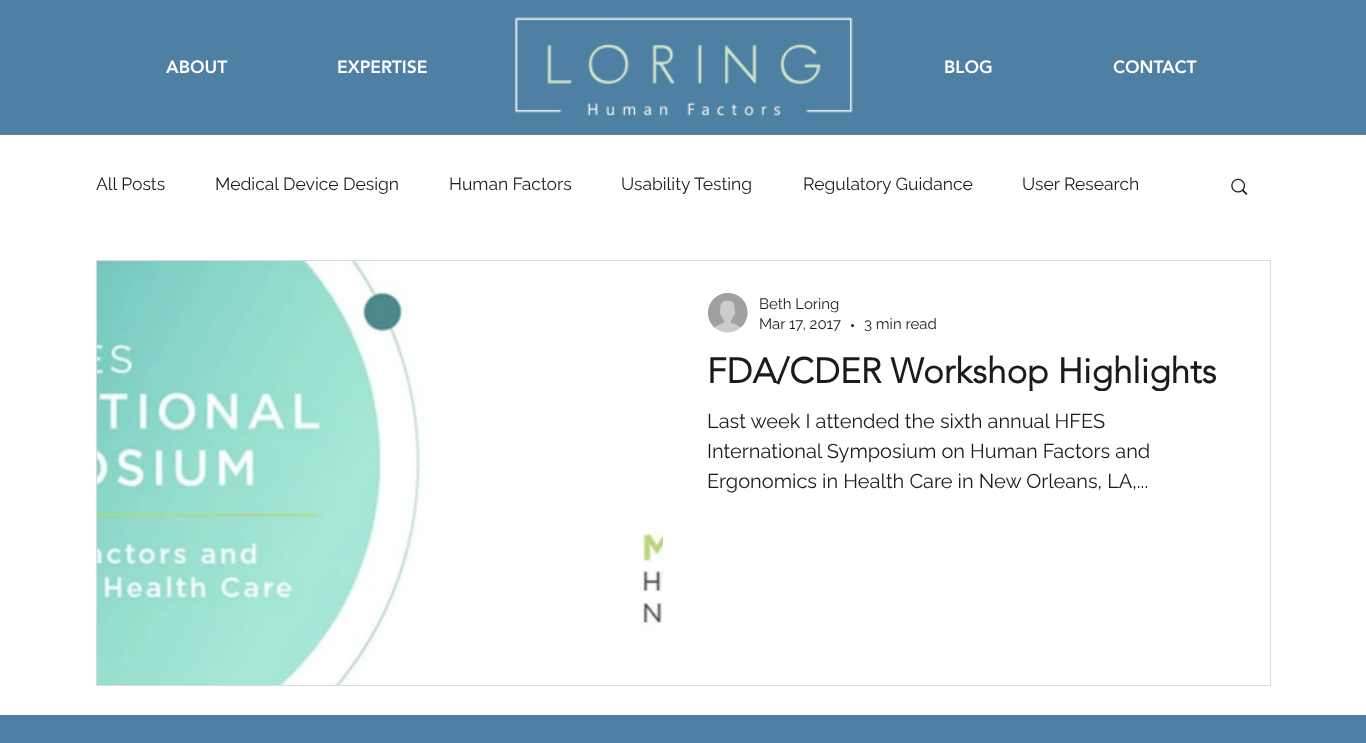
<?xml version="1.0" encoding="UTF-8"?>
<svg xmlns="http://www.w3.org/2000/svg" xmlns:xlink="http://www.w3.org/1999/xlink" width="1366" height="743">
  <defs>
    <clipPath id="clip1"><rect x="708" y="350" width="517" height="41" /></clipPath>
  </defs>
  <rect width="100%" height="100%" fill="#ffffff" />
  <rect width="1366" height="135" fill="#4e80a3" />
  <image x="514" y="17" width="339" height="100" xlink:href="image1.png" />
  <image x="1231" y="178" width="17" height="17" xlink:href="image2.png" />
  <rect x="96.5" y="260.5" width="1174" height="425" fill="none" stroke="#dadada" />
  <image x="97" y="261" width="566" height="424" xlink:href="image3.png" />
  <image x="708" y="293" width="40" height="40" xlink:href="image4.png" />
  <circle cx="852.5" cy="325.5" r="1.5" fill="#1b1b1e" />
  <rect y="715" width="1366" height="28" fill="#4e80a3" />
  <text x="166" y="73" style="font-family: 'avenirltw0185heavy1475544'; font-size: 17.5px; font-weight: 900; fill: #ffffff">ABOUT</text>
  <text x="337" y="73" style="font-family: 'avenirltw0185heavy1475544'; font-size: 17.5px; font-weight: 900; fill: #ffffff">EXPERTISE</text>
  <text x="944" y="73" style="font-family: 'avenirltw0185heavy1475544'; font-size: 17.5px; font-weight: 900; fill: #ffffff">BLOG</text>
  <text x="1113" y="73" style="font-family: 'avenirltw0185heavy1475544'; font-size: 17.5px; font-weight: 900; fill: #ffffff">CONTACT</text>
  <text x="96" y="190" style="font-family: Raleway; font-size: 17.5px; fill: #1b1b1e">All Posts</text>
  <text x="215" y="190" style="font-family: Raleway; font-size: 17.5px; fill: #1b1b1e">Medical Device Design</text>
  <text x="449" y="190" style="font-family: Raleway; font-size: 17.5px; fill: #1b1b1e">Human Factors</text>
  <text x="621" y="190" style="font-family: Raleway; font-size: 17.5px; fill: #1b1b1e">Usability Testing</text>
  <text x="803" y="190" style="font-family: Raleway; font-size: 17.5px; fill: #1b1b1e">Regulatory Guidance</text>
  <text x="1022" y="190" style="font-family: Raleway; font-size: 17.5px; fill: #1b1b1e">User Research</text>
  <text x="759" y="309" style="font-family: Raleway; font-size: 15px; fill: #1b1b1e">Beth Loring</text>
  <text x="759" y="329" style="font-family: Raleway; font-size: 15px; fill: #1b1b1e">Mar 17, 2017</text>
  <text x="864" y="329" style="font-family: Raleway; font-size: 15px; fill: #1b1b1e">3 min read</text>
  <g clip-path="url(#clip1)">
    <text x="707" y="383" style="font-family: 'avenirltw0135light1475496'; font-size: 35px; font-weight: bold; fill: #1b1b1e">FDA/CDER Workshop Highlights</text>
  </g>
  <text x="707" y="428" style="font-family: Raleway; font-size: 20px; fill: #1b1b1e">Last week I attended the sixth annual HFES</text>
  <text x="707" y="458" style="font-family: Raleway; font-size: 20px; fill: #1b1b1e">International Symposium on Human Factors and</text>
  <text x="707" y="488" style="font-family: Raleway; font-size: 20px; fill: #1b1b1e">Ergonomics in Health Care in New Orleans, LA,...</text>
</svg>
